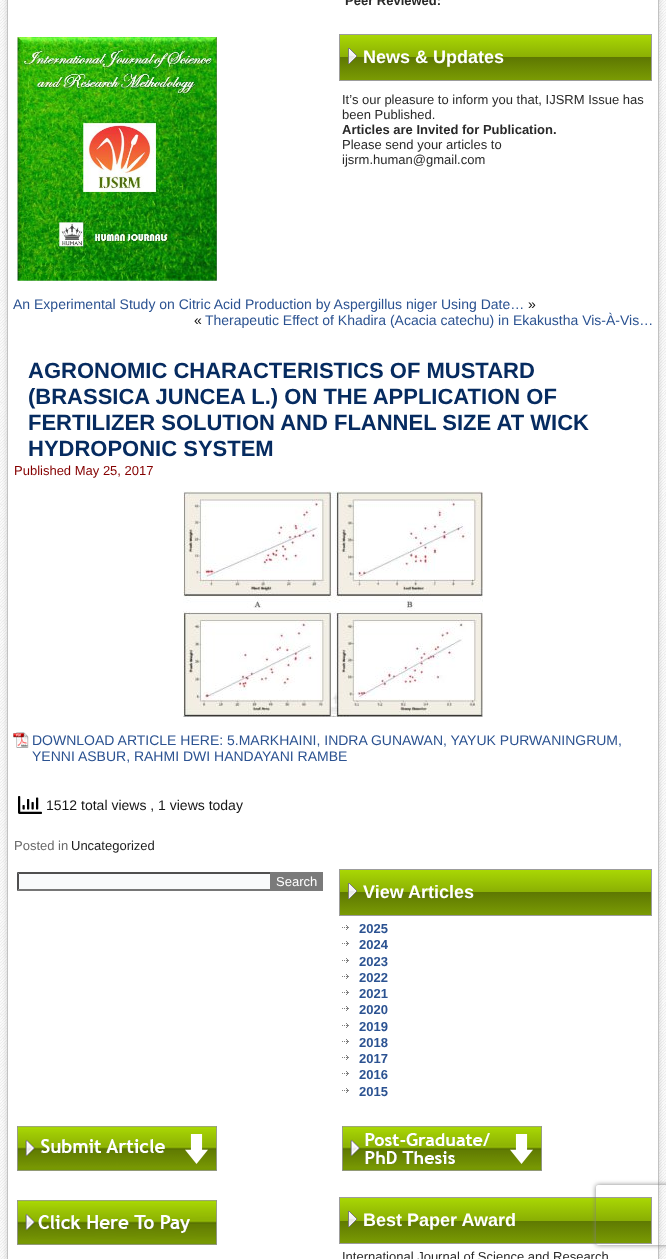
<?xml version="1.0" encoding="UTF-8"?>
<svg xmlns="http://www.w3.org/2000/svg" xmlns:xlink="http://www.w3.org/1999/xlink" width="666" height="1259">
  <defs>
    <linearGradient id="g1" gradientUnits="userSpaceOnUse" x1="496" y1="35" x2="496" y2="80"><stop offset="0" stop-color="#a9d704" /><stop offset="0.5" stop-color="#8aaf04" /><stop offset="0.5" stop-color="#5e7802" /><stop offset="1" stop-color="#7a9b03" /></linearGradient>
    <linearGradient id="g2" gradientUnits="userSpaceOnUse" x1="496" y1="870" x2="496" y2="915"><stop offset="0" stop-color="#a9d704" /><stop offset="0.5" stop-color="#8aaf04" /><stop offset="0.5" stop-color="#5e7802" /><stop offset="1" stop-color="#7a9b03" /></linearGradient>
    <linearGradient id="g3" gradientUnits="userSpaceOnUse" x1="496" y1="1198" x2="496" y2="1243"><stop offset="0" stop-color="#a9d704" /><stop offset="0.5" stop-color="#8aaf04" /><stop offset="0.5" stop-color="#5e7802" /><stop offset="1" stop-color="#7a9b03" /></linearGradient>
    <clipPath id="clip1"><path d="M 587 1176 h 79 v 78 h -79 z m 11 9 h 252 c 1 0 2 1 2 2 v 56 c 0 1 -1 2 -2 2 h -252 c -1 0 -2 -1 -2 -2 v -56 c 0 -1 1 -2 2 -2 z" clip-rule="evenodd" /></clipPath>
  </defs>
  <rect width="100%" height="100%" fill="#ffffff" />
  <image x="0" y="0" width="666" height="1259" xlink:href="image1.png" />
  <rect x="5" y="-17" width="656" height="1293" rx="12" fill="#000000" fill-opacity="0.07" filter="blur(1.5px)" />
  <rect x="7.5" y="-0.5" width="651" height="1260" fill="#ffffff" stroke="#c2c2c2" />
  <image x="17" y="37" width="200" height="244" xlink:href="image2.png" />
  <rect x="340" y="35" width="311" height="45" fill="url(#g1)" />
  <rect x="339.5" y="34.5" width="312" height="46" fill="none" stroke="#9c9c9c" />
  <image x="348" y="48" width="9" height="16" xlink:href="image3.png" />
  <image x="183" y="491" width="300" height="226" xlink:href="image4.png" />
  <image x="13" y="732" width="16" height="16" xlink:href="image5.png" />
  <image x="18" y="796" width="24" height="18" xlink:href="image6.png" />
  <rect x="17" y="872" width="253" height="19" fill="#f9fafb" />
  <path d="M 17 872 h 306 l -2 2 h -302 z" fill="#4f4f4f" />
  <path d="M 323 891 h -306 l 2 -2 h 302 z" fill="#767676" />
  <path d="M 17 891 v -19 l 2 2 v 15 z" fill="#4f4f4f" />
  <rect x="270" y="872" width="53" height="19" fill="#7a7a7a" />
  <rect x="340" y="870" width="311" height="45" fill="url(#g2)" />
  <rect x="339.5" y="869.5" width="312" height="46" fill="none" stroke="#9c9c9c" />
  <image x="348" y="883" width="9" height="16" xlink:href="image3.png" />
  <image x="342" y="925" width="7" height="5" xlink:href="image7.png" />
  <image x="342" y="941" width="7" height="5" xlink:href="image7.png" />
  <image x="342" y="958" width="7" height="5" xlink:href="image7.png" />
  <image x="342" y="974" width="7" height="5" xlink:href="image7.png" />
  <image x="342" y="990" width="7" height="5" xlink:href="image7.png" />
  <image x="342" y="1006" width="7" height="5" xlink:href="image7.png" />
  <image x="342" y="1023" width="7" height="5" xlink:href="image7.png" />
  <image x="342" y="1039" width="7" height="5" xlink:href="image7.png" />
  <image x="342" y="1055" width="7" height="5" xlink:href="image7.png" />
  <image x="342" y="1071" width="7" height="5" xlink:href="image7.png" />
  <image x="342" y="1088" width="7" height="5" xlink:href="image7.png" />
  <image x="17" y="1126" width="200" height="45" xlink:href="image8.png" />
  <image x="342" y="1126" width="200" height="45" xlink:href="image9.png" />
  <image x="17" y="1200" width="200" height="45" xlink:href="image10.png" />
  <rect x="340" y="1198" width="311" height="45" fill="url(#g3)" />
  <rect x="339.5" y="1197.5" width="312" height="46" fill="none" stroke="#9c9c9c" />
  <image x="348" y="1211" width="9" height="16" xlink:href="image3.png" />
  <g clip-path="url(#clip1)">
    <rect x="596" y="1185" width="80" height="60" rx="2" fill="#808080" filter="blur(2.5px)" />
  </g>
  <text x="345" y="5" style="font-family: Liberation Sans; font-size: 13px; font-weight: bold; fill: #292929">Peer Reviewed:</text>
  <text x="363" y="63" style="font-family: Liberation Sans; font-size: 18px; font-weight: bold; fill: #ffffff">News &amp; Updates</text>
  <text x="342" y="104" style="font-family: Liberation Sans; font-size: 13px; fill: #292929">It’s our pleasure to inform you that, IJSRM Issue has</text>
  <text x="342" y="119" style="font-family: Liberation Sans; font-size: 13px; fill: #292929">been Published.</text>
  <text x="342" y="134" style="font-family: Liberation Sans; font-size: 13px; font-weight: bold; fill: #292929">Articles are Invited for Publication.</text>
  <text x="342" y="149" style="font-family: Liberation Sans; font-size: 13px; fill: #292929">Please send your articles to</text>
  <text x="342" y="164" style="font-family: Liberation Sans; font-size: 13px; fill: #292929">ijsrm.human@gmail.com</text>
  <text x="13" y="309" style="font-family: Liberation Sans; font-size: 14px; fill: #2b5291">An Experimental Study on Citric Acid Production by Aspergillus niger Using Date…</text>
  <text x="528" y="309" style="font-family: Liberation Sans; font-size: 14px; fill: #141414">»</text>
  <text x="194" y="325" style="font-family: Liberation Sans; font-size: 14px; fill: #141414">«</text>
  <text x="205" y="325" style="font-family: Liberation Sans; font-size: 14px; fill: #2b5291">Therapeutic Effect of Khadira (Acacia catechu) in Ekakustha Vis-À-Vis…</text>
  <text x="28" y="378" style="font-family: Liberation Sans; font-size: 22px; font-weight: bold; fill: #062b60">AGRONOMIC CHARACTERISTICS OF MUSTARD</text>
  <text x="28" y="404" style="font-family: Liberation Sans; font-size: 22px; font-weight: bold; fill: #062b60">(BRASSICA JUNCEA L.) ON THE APPLICATION OF</text>
  <text x="28" y="430" style="font-family: Liberation Sans; font-size: 22px; font-weight: bold; fill: #062b60">FERTILIZER SOLUTION AND FLANNEL SIZE AT WICK</text>
  <text x="28" y="456" style="font-family: Liberation Sans; font-size: 22px; font-weight: bold; fill: #062b60">HYDROPONIC SYSTEM</text>
  <text x="14" y="475" style="font-family: Liberation Sans; font-size: 13px; fill: #850000">Published May 25, 2017</text>
  <text x="32" y="745" style="font-family: Liberation Sans; font-size: 14px; fill: #2b5291">DOWNLOAD ARTICLE HERE: 5.MARKHAINI, INDRA GUNAWAN, YAYUK PURWANINGRUM,</text>
  <text x="32" y="761" style="font-family: Liberation Sans; font-size: 14px; fill: #2b5291">YENNI ASBUR, RAHMI DWI HANDAYANI RAMBE</text>
  <text x="46" y="810" style="font-family: Liberation Sans; font-size: 14px; fill: #141414">1512 total views , 1 views today</text>
  <text x="14" y="850" style="font-family: Liberation Sans; font-size: 13px; fill: #696969">Posted in</text>
  <text x="71" y="850" style="font-family: Liberation Sans; font-size: 13px; fill: #1c1c1c">Uncategorized</text>
  <text x="276" y="886" style="font-family: Liberation Sans; font-size: 13px; fill: #ffffff">Search</text>
  <text x="363" y="898" style="font-family: Liberation Sans; font-size: 18px; font-weight: bold; fill: #ffffff">View Articles</text>
  <text x="359" y="933" style="font-family: Liberation Sans; font-size: 13px; font-weight: bold; fill: #2b5291">2025</text>
  <text x="359" y="949" style="font-family: Liberation Sans; font-size: 13px; font-weight: bold; fill: #2b5291">2024</text>
  <text x="359" y="966" style="font-family: Liberation Sans; font-size: 13px; font-weight: bold; fill: #2b5291">2023</text>
  <text x="359" y="982" style="font-family: Liberation Sans; font-size: 13px; font-weight: bold; fill: #2b5291">2022</text>
  <text x="359" y="998" style="font-family: Liberation Sans; font-size: 13px; font-weight: bold; fill: #2b5291">2021</text>
  <text x="359" y="1014" style="font-family: Liberation Sans; font-size: 13px; font-weight: bold; fill: #2b5291">2020</text>
  <text x="359" y="1031" style="font-family: Liberation Sans; font-size: 13px; font-weight: bold; fill: #2b5291">2019</text>
  <text x="359" y="1047" style="font-family: Liberation Sans; font-size: 13px; font-weight: bold; fill: #2b5291">2018</text>
  <text x="359" y="1063" style="font-family: Liberation Sans; font-size: 13px; font-weight: bold; fill: #2b5291">2017</text>
  <text x="359" y="1079" style="font-family: Liberation Sans; font-size: 13px; font-weight: bold; fill: #2b5291">2016</text>
  <text x="359" y="1096" style="font-family: Liberation Sans; font-size: 13px; font-weight: bold; fill: #2b5291">2015</text>
  <text x="363" y="1226" style="font-family: Liberation Sans; font-size: 18px; font-weight: bold; fill: #ffffff">Best Paper Award</text>
  <text x="342" y="1261" style="font-family: Liberation Sans; font-size: 13px; fill: #292929">International Journal of Science and Research</text>
</svg>
